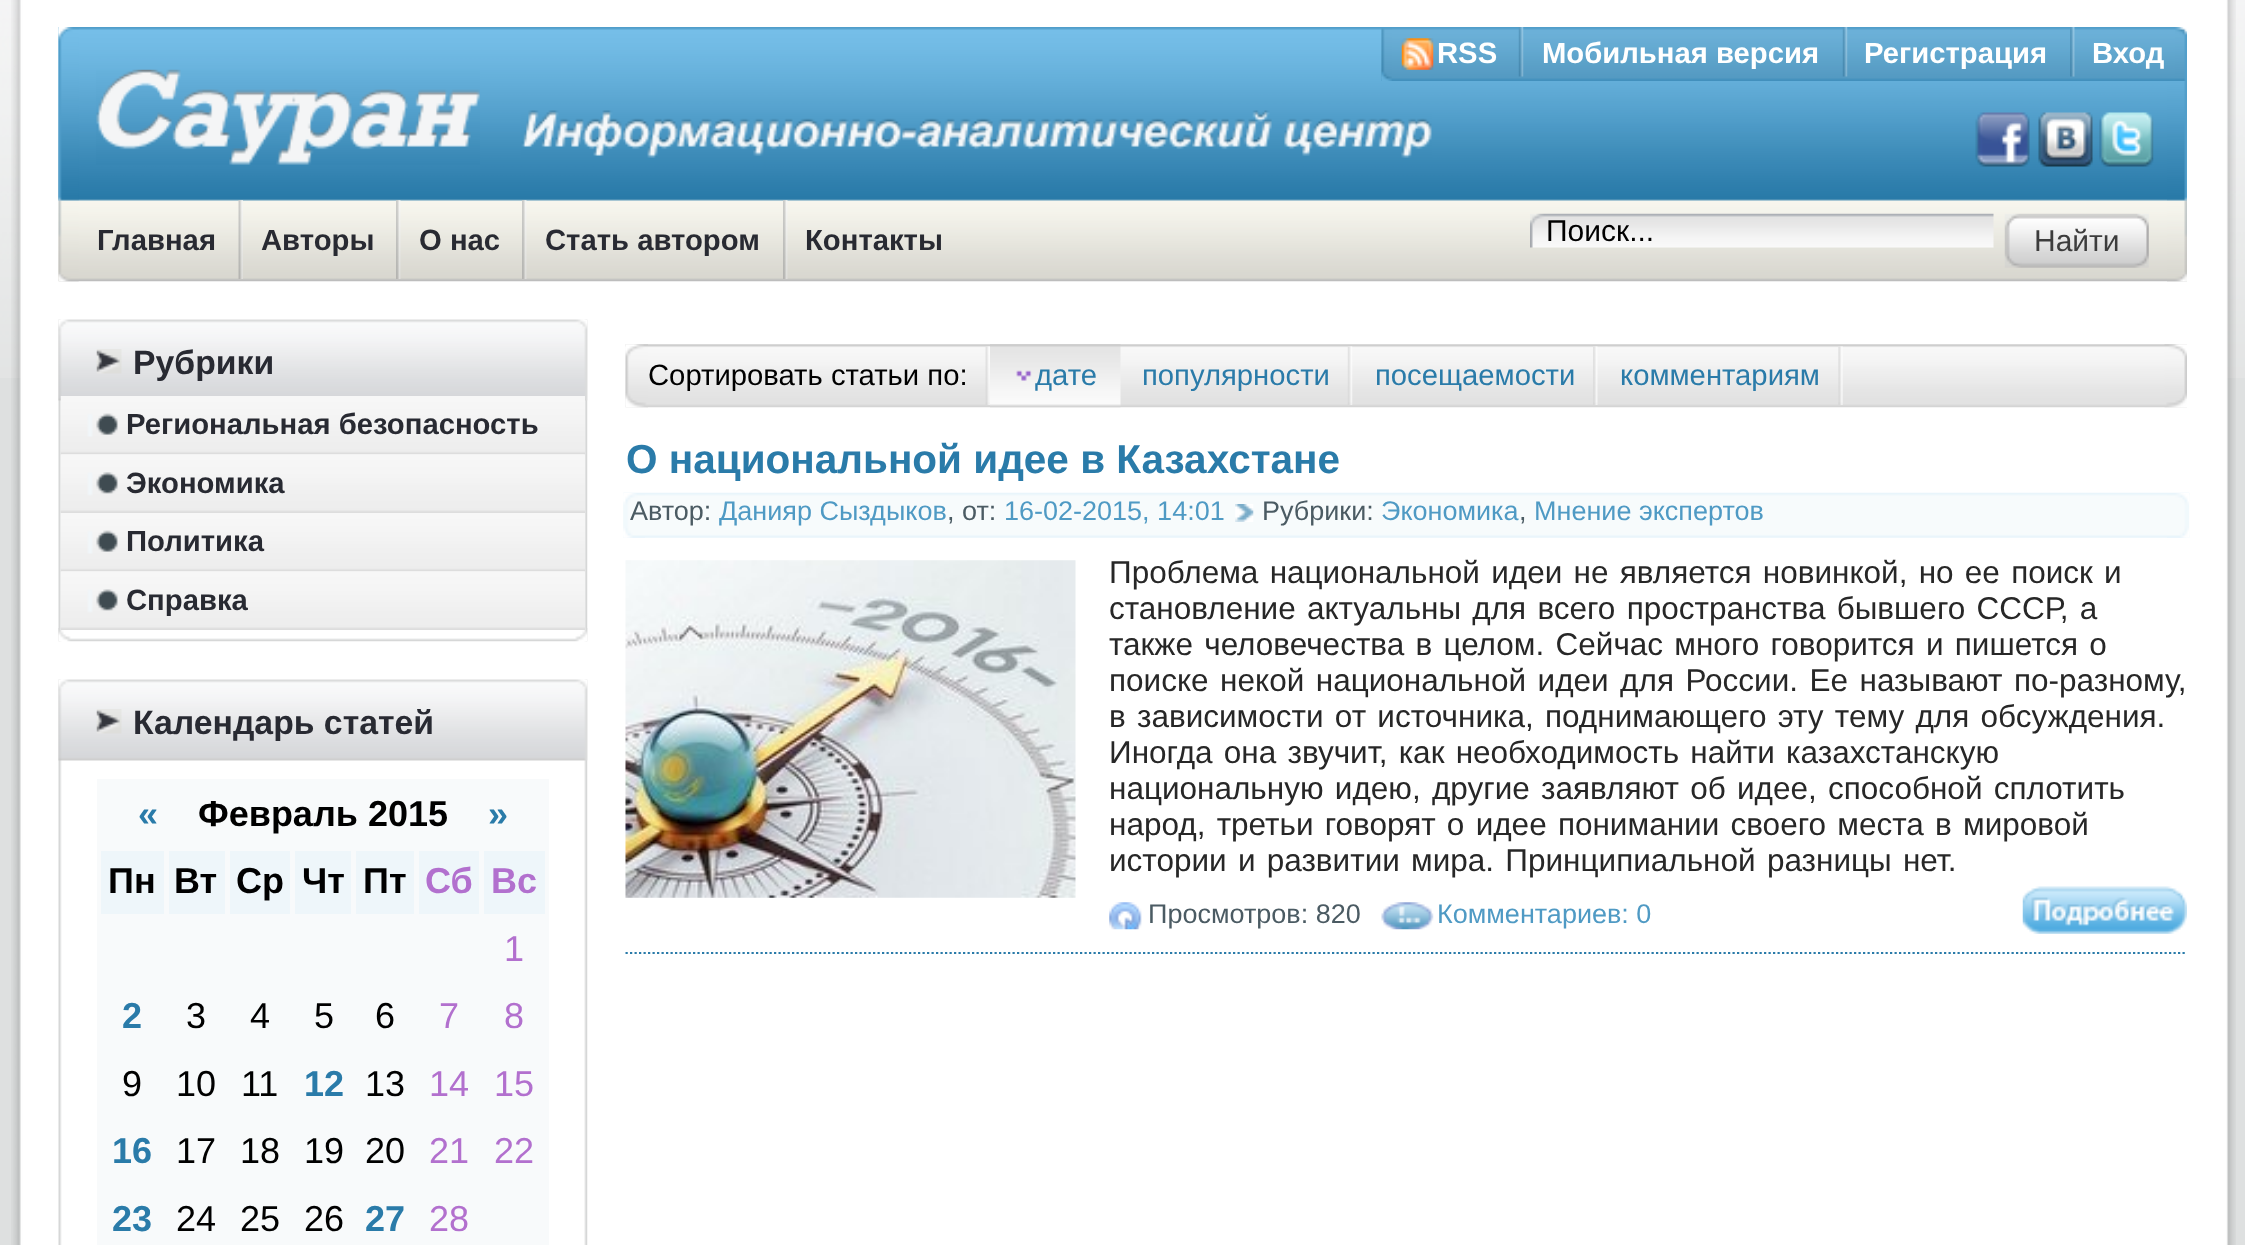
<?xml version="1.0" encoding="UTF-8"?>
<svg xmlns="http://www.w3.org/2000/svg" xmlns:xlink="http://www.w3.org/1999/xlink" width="2245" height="1245">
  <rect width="100%" height="100%" fill="#dee0e0" />
  <image x="0" y="0" width="2245" height="378" xlink:href="image1.png" />
  <image x="11" y="0" width="2225" height="1245" xlink:href="image2.png" />
  <image x="58" y="27" width="2129" height="255" xlink:href="image3.png" />
  <image x="58" y="27" width="21" height="255" xlink:href="image4.png" />
  <image x="2167" y="81" width="20" height="201" xlink:href="image5.png" />
  <image x="1381" y="27" width="794" height="54" xlink:href="image6.png" />
  <image x="1381" y="28" width="11" height="53" xlink:href="image7.png" />
  <image x="2175" y="27" width="12" height="54" xlink:href="image8.png" />
  <image x="1401" y="38" width="33" height="32" xlink:href="image9.png" />
  <image x="1518" y="27" width="6" height="50" xlink:href="image10.png" />
  <image x="1842" y="27" width="6" height="50" xlink:href="image11.png" />
  <image x="2070" y="27" width="5" height="50" xlink:href="image12.png" />
  <image x="96" y="69" width="384" height="96" xlink:href="image13.png" />
  <image x="521" y="110" width="911" height="48" xlink:href="image14.png" />
  <image x="1975" y="112" width="55" height="55" xlink:href="image15.png" />
  <image x="2038" y="112" width="55" height="55" xlink:href="image16.png" />
  <image x="2099" y="112" width="55" height="55" xlink:href="image17.png" />
  <image x="238" y="200" width="5" height="79" xlink:href="image18.png" />
  <image x="396" y="200" width="5" height="79" xlink:href="image19.png" />
  <image x="522" y="200" width="5" height="79" xlink:href="image19.png" />
  <image x="783" y="200" width="5" height="79" xlink:href="image19.png" />
  <image x="1530" y="213" width="464" height="35" xlink:href="image20.png" />
  <image x="2004" y="213" width="145" height="55" xlink:href="image21.png" />
  <image x="58" y="319" width="530" height="323" xlink:href="image22.png" />
  <image x="58" y="319" width="530" height="82" xlink:href="image23.png" />
  <image x="58" y="628" width="530" height="14" xlink:href="image24.png" />
  <image x="96" y="349" width="26" height="25" xlink:href="image25.png" />
  <image x="60" y="396" width="525" height="59" xlink:href="image26.png" />
  <image x="60" y="454" width="525" height="59" xlink:href="image27.png" />
  <image x="60" y="513" width="525" height="59" xlink:href="image28.png" />
  <image x="60" y="571" width="525" height="59" xlink:href="image29.png" />
  <image x="58" y="679" width="530" height="566" xlink:href="image30.png" />
  <image x="58" y="679" width="530" height="82" xlink:href="image23.png" />
  <image x="96" y="709" width="26" height="25" xlink:href="image25.png" />
  <rect x="97" y="779" width="452" height="466" fill="#f8fafb" />
  <rect x="101" y="851" width="63" height="63" fill="#eef6fa" />
  <rect x="169" y="851" width="56" height="63" fill="#eef6fa" />
  <rect x="230" y="851" width="60" height="63" fill="#eef6fa" />
  <rect x="295" y="851" width="56" height="63" fill="#eef6fa" />
  <rect x="356" y="851" width="58" height="63" fill="#eef6fa" />
  <rect x="419" y="851" width="60" height="63" fill="#eef6fa" />
  <rect x="484" y="851" width="61" height="63" fill="#eef6fa" />
  <image x="625" y="344" width="1562" height="64" xlink:href="image31.png" />
  <image x="625" y="344" width="23" height="64" xlink:href="image32.png" />
  <image x="2164" y="344" width="23" height="64" xlink:href="image33.png" />
  <image x="985" y="346" width="5" height="59" xlink:href="image34.png" />
  <image x="990" y="344" width="131" height="64" xlink:href="image35.png" />
  <image x="1016" y="370" width="16" height="11" xlink:href="image36.png" />
  <image x="1347" y="346" width="6" height="59" xlink:href="image37.png" />
  <image x="1593" y="346" width="5" height="59" xlink:href="image38.png" />
  <image x="1838" y="346" width="5" height="59" xlink:href="image39.png" />
  <path d="M 625.5 953 h 1561.5" fill="none" stroke="#2a7ba9" stroke-width="2.2" stroke-dasharray="2.25 2.25" />
  <image x="623" y="492" width="1567" height="46" xlink:href="image40.png" />
  <image x="623" y="493" width="22" height="45" xlink:href="image41.png" />
  <image x="2167" y="493" width="22" height="45" xlink:href="image42.png" />
  <image x="1235" y="504" width="19" height="18" xlink:href="image43.png" />
  <image x="625" y="560" width="451" height="338" xlink:href="image44.png" />
  <image x="1109" y="902" width="33" height="28" xlink:href="image45.png" />
  <image x="1381" y="902" width="53" height="28" xlink:href="image46.png" />
  <image x="2022" y="886" width="165" height="48" xlink:href="image47.png" />
  <text x="1437" y="63" style="font-family: Liberation Sans; font-size: 29.25px; font-weight: bold; fill: #ffffff">RSS</text>
  <text x="1542" y="63" style="font-family: Liberation Sans; font-size: 29.25px; font-weight: bold; fill: #ffffff">Мобильная версия</text>
  <text x="1864" y="63" style="font-family: Liberation Sans; font-size: 29.25px; font-weight: bold; fill: #ffffff">Регистрация</text>
  <text x="2092" y="63" style="font-family: Liberation Sans; font-size: 29.25px; font-weight: bold; fill: #ffffff">Вход</text>
  <text x="97" y="250" style="font-family: Liberation Sans; font-size: 29.25px; font-weight: bold; fill: #282a32">Главная</text>
  <text x="261" y="250" style="font-family: Liberation Sans; font-size: 29.25px; font-weight: bold; fill: #282a32">Авторы</text>
  <text x="419" y="250" style="font-family: Liberation Sans; font-size: 29.25px; font-weight: bold; fill: #282a32">О нас</text>
  <text x="545" y="250" style="font-family: Liberation Sans; font-size: 29.25px; font-weight: bold; fill: #282a32">Стать автором</text>
  <text x="805" y="250" style="font-family: Liberation Sans; font-size: 29.25px; font-weight: bold; fill: #282a32">Контакты</text>
  <text x="1546" y="241" style="font-family: Liberation Sans; font-size: 30px; fill: #000000">Поиск...</text>
  <text x="2034" y="251" style="font-family: Liberation Sans; font-size: 30px; fill: #3c3c3c">Найти</text>
  <text x="133" y="374" style="font-family: Liberation Sans; font-size: 33.75px; font-weight: bold; fill: #282a32">Рубрики</text>
  <text x="126" y="434" style="font-family: Liberation Sans; font-size: 29.25px; font-weight: bold; fill: #282a32">Региональная безопасность</text>
  <text x="126" y="493" style="font-family: Liberation Sans; font-size: 29.25px; font-weight: bold; fill: #282a32">Экономика</text>
  <text x="126" y="551" style="font-family: Liberation Sans; font-size: 29.25px; font-weight: bold; fill: #282a32">Политика</text>
  <text x="126" y="610" style="font-family: Liberation Sans; font-size: 29.25px; font-weight: bold; fill: #282a32">Справка</text>
  <text x="133" y="734" style="font-family: Liberation Sans; font-size: 33.75px; font-weight: bold; fill: #282a32">Календарь статей</text>
  <text x="138" y="826" style="font-family: Liberation Sans; font-size: 36px; font-weight: bold; fill: #2a7ba9">«</text>
  <text x="198" y="826" style="font-family: Liberation Sans; font-size: 36px; font-weight: bold; fill: #000000">Февраль 2015</text>
  <text x="488" y="826" style="font-family: Liberation Sans; font-size: 36px; font-weight: bold; fill: #2a7ba9">»</text>
  <text x="108" y="893" style="font-family: Liberation Sans; font-size: 36px; font-weight: bold; fill: #000000">Пн</text>
  <text x="174" y="893" style="font-family: Liberation Sans; font-size: 36px; font-weight: bold; fill: #000000">Вт</text>
  <text x="236" y="893" style="font-family: Liberation Sans; font-size: 36px; font-weight: bold; fill: #000000">Ср</text>
  <text x="302" y="893" style="font-family: Liberation Sans; font-size: 36px; font-weight: bold; fill: #000000">Чт</text>
  <text x="363" y="893" style="font-family: Liberation Sans; font-size: 36px; font-weight: bold; fill: #000000">Пт</text>
  <text x="425" y="893" style="font-family: Liberation Sans; font-size: 36px; font-weight: bold; fill: #b270ce">Сб</text>
  <text x="491" y="893" style="font-family: Liberation Sans; font-size: 36px; font-weight: bold; fill: #b270ce">Вс</text>
  <text x="504" y="961" style="font-family: Liberation Sans; font-size: 36px; fill: #b270ce">1</text>
  <text x="122" y="1028" style="font-family: Liberation Sans; font-size: 36px; font-weight: bold; fill: #2a7ba9">2</text>
  <text x="186" y="1028" style="font-family: Liberation Sans; font-size: 36px; fill: #000000">3</text>
  <text x="250" y="1028" style="font-family: Liberation Sans; font-size: 36px; fill: #000000">4</text>
  <text x="314" y="1028" style="font-family: Liberation Sans; font-size: 36px; fill: #000000">5</text>
  <text x="375" y="1028" style="font-family: Liberation Sans; font-size: 36px; fill: #000000">6</text>
  <text x="439" y="1028" style="font-family: Liberation Sans; font-size: 36px; fill: #b270ce">7</text>
  <text x="504" y="1028" style="font-family: Liberation Sans; font-size: 36px; fill: #b270ce">8</text>
  <text x="122" y="1096" style="font-family: Liberation Sans; font-size: 36px; fill: #000000">9</text>
  <text x="176" y="1096" style="font-family: Liberation Sans; font-size: 36px; fill: #000000">10</text>
  <text x="241" y="1096" style="font-family: Liberation Sans; font-size: 36px; fill: #000000">11</text>
  <text x="304" y="1096" style="font-family: Liberation Sans; font-size: 36px; font-weight: bold; fill: #2a7ba9">12</text>
  <text x="365" y="1096" style="font-family: Liberation Sans; font-size: 36px; fill: #000000">13</text>
  <text x="429" y="1096" style="font-family: Liberation Sans; font-size: 36px; fill: #b270ce">14</text>
  <text x="494" y="1096" style="font-family: Liberation Sans; font-size: 36px; fill: #b270ce">15</text>
  <text x="112" y="1163" style="font-family: Liberation Sans; font-size: 36px; font-weight: bold; fill: #2a7ba9">16</text>
  <text x="176" y="1163" style="font-family: Liberation Sans; font-size: 36px; fill: #000000">17</text>
  <text x="240" y="1163" style="font-family: Liberation Sans; font-size: 36px; fill: #000000">18</text>
  <text x="304" y="1163" style="font-family: Liberation Sans; font-size: 36px; fill: #000000">19</text>
  <text x="365" y="1163" style="font-family: Liberation Sans; font-size: 36px; fill: #000000">20</text>
  <text x="429" y="1163" style="font-family: Liberation Sans; font-size: 36px; fill: #b270ce">21</text>
  <text x="494" y="1163" style="font-family: Liberation Sans; font-size: 36px; fill: #b270ce">22</text>
  <text x="112" y="1231" style="font-family: Liberation Sans; font-size: 36px; font-weight: bold; fill: #2a7ba9">23</text>
  <text x="176" y="1231" style="font-family: Liberation Sans; font-size: 36px; fill: #000000">24</text>
  <text x="240" y="1231" style="font-family: Liberation Sans; font-size: 36px; fill: #000000">25</text>
  <text x="304" y="1231" style="font-family: Liberation Sans; font-size: 36px; fill: #000000">26</text>
  <text x="365" y="1231" style="font-family: Liberation Sans; font-size: 36px; font-weight: bold; fill: #2a7ba9">27</text>
  <text x="429" y="1231" style="font-family: Liberation Sans; font-size: 36px; fill: #b270ce">28</text>
  <text x="648" y="385" style="font-family: Liberation Sans; font-size: 29.25px; fill: #000000">Сортировать статьи по:</text>
  <text x="1035" y="385" style="font-family: Liberation Sans; font-size: 29.25px; fill: #2a7ba9">дате</text>
  <text x="1142" y="385" style="font-family: Liberation Sans; font-size: 29.25px; fill: #2a7ba9">популярности</text>
  <text x="1375" y="385" style="font-family: Liberation Sans; font-size: 29.25px; fill: #2a7ba9">посещаемости</text>
  <text x="1620" y="385" style="font-family: Liberation Sans; font-size: 29.25px; fill: #2a7ba9">комментариям</text>
  <text x="626" y="473" style="font-family: Liberation Sans; font-size: 40.5px; font-weight: bold; fill: #2a7ba9">О национальной идее в Казахстане</text>
  <text x="630" y="520" style="font-family: Liberation Sans; font-size: 27px; fill: #4b5b63">Автор:</text>
  <text x="719" y="520" style="font-family: Liberation Sans; font-size: 27px; fill: #4f9ac4">Данияр Сыздыков</text>
  <text x="947" y="520" style="font-family: Liberation Sans; font-size: 27px; fill: #4b5b63">, от:</text>
  <text x="1004" y="520" style="font-family: Liberation Sans; font-size: 27px; fill: #4f9ac4">16-02-2015, 14:01</text>
  <text x="1262" y="520" style="font-family: Liberation Sans; font-size: 27px; fill: #4b5b63">Рубрики:</text>
  <text x="1381" y="520" style="font-family: Liberation Sans; font-size: 27px; fill: #4f9ac4">Экономика</text>
  <text x="1519" y="520" style="font-family: Liberation Sans; font-size: 27px; fill: #4b5b63">,</text>
  <text x="1534" y="520" style="font-family: Liberation Sans; font-size: 27px; fill: #4f9ac4">Мнение экспертов</text>
  <text x="1109" y="583" word-spacing="2.5" style="font-family: Liberation Sans; font-size: 31.5px; fill: #272727">Проблема национальной идеи не является новинкой, но ее поиск и</text>
  <text x="1109" y="619" word-spacing="2.5" style="font-family: Liberation Sans; font-size: 31.5px; fill: #272727">становление актуальны для всего пространства бывшего СССР, а</text>
  <text x="1109" y="655" word-spacing="2.5" style="font-family: Liberation Sans; font-size: 31.5px; fill: #272727">также человечества в целом. Сейчас много говорится и пишется о</text>
  <text x="1109" y="691" word-spacing="2.75" style="font-family: Liberation Sans; font-size: 31.5px; fill: #272727">поиске некой национальной идеи для России. Ее называют по-разному,</text>
  <text x="1109" y="727" word-spacing="2.5" style="font-family: Liberation Sans; font-size: 31.5px; fill: #272727">в зависимости от источника, поднимающего эту тему для обсуждения.</text>
  <text x="1109" y="763" word-spacing="2.5" style="font-family: Liberation Sans; font-size: 31.5px; fill: #272727">Иногда она звучит, как необходимость найти казахстанскую</text>
  <text x="1109" y="799" word-spacing="2.5" style="font-family: Liberation Sans; font-size: 31.5px; fill: #272727">национальную идею, другие заявляют об идее, способной сплотить</text>
  <text x="1109" y="835" word-spacing="2.5" style="font-family: Liberation Sans; font-size: 31.5px; fill: #272727">народ, третьи говорят о идее понимании своего места в мировой</text>
  <text x="1109" y="871" word-spacing="2.5" style="font-family: Liberation Sans; font-size: 31.5px; fill: #272727">истории и развитии мира. Принципиальной разницы нет.</text>
  <text x="1148" y="923" style="font-family: Liberation Sans; font-size: 27px; fill: #4b5b63">Просмотров: 820</text>
  <text x="1437" y="923" style="font-family: Liberation Sans; font-size: 27px; fill: #4f9ac4">Комментариев: 0</text>
</svg>
